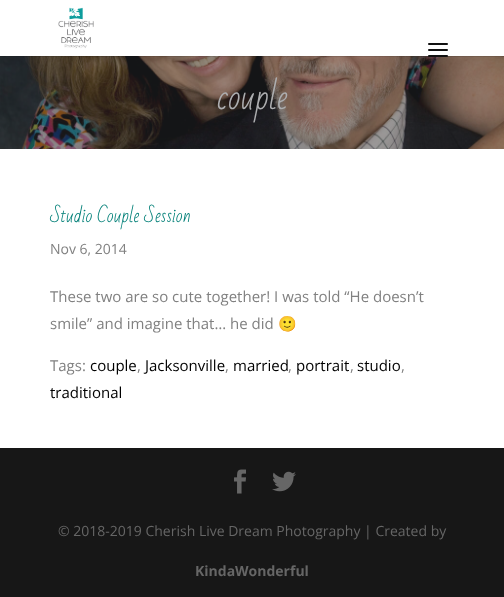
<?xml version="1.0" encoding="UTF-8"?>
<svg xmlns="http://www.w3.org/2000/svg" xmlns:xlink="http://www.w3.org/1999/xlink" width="504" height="597">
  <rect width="100%" height="100%" fill="#ffffff" />
  <image x="0" y="56" width="504" height="93" xlink:href="image3.png" />
  <rect y="56" width="504" height="1" fill="#000000" fill-opacity="0.1" />
  <image x="58" y="7" width="36" height="42" xlink:href="image1.png" />
  <image x="428" y="43" width="20" height="14" xlink:href="image2.png" />
  <rect y="448" width="504" height="149" fill="#171717" />
  <image x="234" y="469" width="12" height="25" xlink:href="image4.png" />
  <image x="272" y="471" width="24" height="21" xlink:href="image5.png" />
  <text x="217" y="109" style="font-family: Bad Script; font-size: 33px; fill: #adaeb0">couple</text>
  <text x="50" y="222" style="font-family: Bad Script; font-size: 18px; fill: #007f77">Studio Couple Session</text>
  <text x="50" y="254" style="font-family: Open Sans; font-size: 14px; fill: #818181">Nov 6, 2014</text>
  <text x="50" y="302" style="font-family: Open Sans; font-size: 15px; fill: #818181">These two are so cute together! I was told “He doesn’t</text>
  <text x="50" y="329" style="font-family: Open Sans; font-size: 15px; fill: #818181">smile” and imagine that… he did</text>
  <text x="278" y="329" style="font-family: Noto Color Emoji; font-size: 15px; fill: #818181">🙂</text>
  <text x="50" y="371" style="font-family: Open Sans; font-size: 15px; fill: #818181">Tags:</text>
  <text x="90" y="371" style="font-family: Open Sans; font-size: 15px; fill: #000000">couple</text>
  <text x="137" y="371" style="font-family: Open Sans; font-size: 15px; fill: #818181">,</text>
  <text x="145" y="371" style="font-family: Open Sans; font-size: 15px; fill: #000000">Jacksonville</text>
  <text x="225" y="371" style="font-family: Open Sans; font-size: 15px; fill: #818181">,</text>
  <text x="233" y="371" style="font-family: Open Sans; font-size: 15px; fill: #000000">married</text>
  <text x="288" y="371" style="font-family: Open Sans; font-size: 15px; fill: #818181">,</text>
  <text x="296" y="371" style="font-family: Open Sans; font-size: 15px; fill: #000000">portrait</text>
  <text x="350" y="371" style="font-family: Open Sans; font-size: 15px; fill: #818181">,</text>
  <text x="357" y="371" style="font-family: Open Sans; font-size: 15px; fill: #000000">studio</text>
  <text x="401" y="371" style="font-family: Open Sans; font-size: 15px; fill: #818181">,</text>
  <text x="50" y="398" style="font-family: Open Sans; font-size: 15px; fill: #000000">traditional</text>
  <text x="58" y="536" style="font-family: Open Sans; font-size: 14px; fill: #666666">© 2018-2019 Cherish Live Dream Photography | Created by</text>
  <text x="195" y="576" style="font-family: Open Sans; font-size: 14px; font-weight: bold; fill: #666666">KindaWonderful</text>
</svg>
